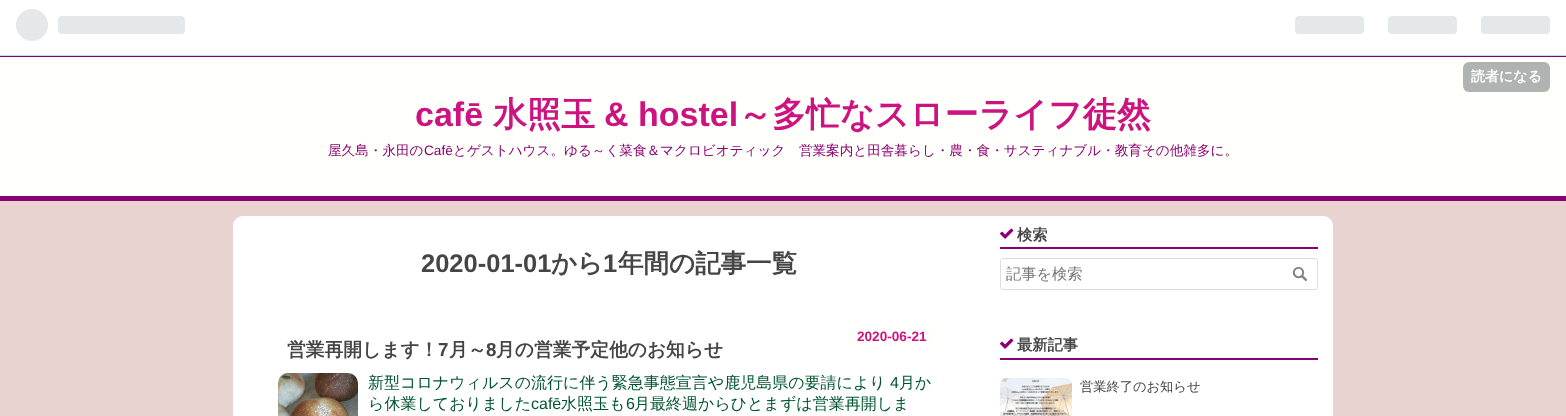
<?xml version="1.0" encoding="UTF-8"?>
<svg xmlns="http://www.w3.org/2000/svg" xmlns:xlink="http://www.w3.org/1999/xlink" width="1566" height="416">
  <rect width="100%" height="100%" fill="#fffffc" />
  <rect width="1566" height="55" fill="#ffffff" />
  <rect y="55" width="1566" height="1" fill="#d2d8dd" />
  <rect y="56" width="1566" height="1" fill="#8a0073" />
  <image x="16" y="9" width="169" height="32" xlink:href="image1.png" />
  <image x="1295" y="16" width="255" height="18" xlink:href="image2.png" />
  <rect x="1463" y="62" width="87" height="30" rx="6" fill="#b1b3b3" />
  <rect y="196" width="1566" height="5" fill="#8a0073" />
  <rect y="201" width="1566" height="215" fill="#e8d3d1" />
  <path d="M 243 216 h 742 v 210 h -742 c -5.5 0 -10 -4.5 -10 -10 v -190 c 0 -5.5 4.5 -10 10 -10 z" fill="#ffffff" />
  <path d="M 850 327 h 37 v 20 h -37 c -4 0 -7 -3 -7 -7 v -6 c 0 -4 3 -7 7 -7 z" fill="#fffffc" />
  <rect x="887" y="327" width="24" height="20" fill="#fffffc" />
  <path d="M 911 327 h 22 c 4 0 7 3 7 7 v 6 c 0 4 -3 7 -7 7 h -22 z" fill="#fffffc" />
  <image x="278" y="373" width="80" height="43" xlink:href="image3.png" />
  <path d="M 985 216 h 338 c 5.5 0 10 4.5 10 10 v 190 c 0 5.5 -4.5 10 -10 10 h -338 z" fill="#ffffff" />
  <rect x="1000" y="247" width="318" height="2" fill="#8a0073" />
  <image x="1000" y="228" width="14" height="11" xlink:href="image4.png" />
  <rect x="1000.5" y="258.5" width="317" height="31" rx="2.5" fill="none" stroke="#dddddd" />
  <image x="1292" y="267" width="15" height="14" xlink:href="image5.png" />
  <rect x="1000" y="358" width="318" height="2" fill="#8a0073" />
  <image x="1000" y="338" width="14" height="11" xlink:href="image4.png" />
  <image x="1000" y="378" width="72" height="38" xlink:href="image6.png" />
  <text x="1471" y="81" style="font-family: WenQuanYi Zen Hei; font-size: 14px; font-weight: bold; fill: #ffffff">読者になる</text>
  <text x="415" y="126" style="font-family: Liberation Sans; font-size: 34px; font-weight: bold; fill: #cd1380">cafē</text>
  <text x="493" y="126" style="font-family: WenQuanYi Zen Hei; font-size: 34px; font-weight: bold; fill: #cd1380">水照玉</text>
  <text x="604" y="126" style="font-family: Liberation Sans; font-size: 34px; font-weight: bold; fill: #cd1380">&amp; hostel</text>
  <text x="738" y="126" style="font-family: WenQuanYi Zen Hei; font-size: 34px; font-weight: bold; fill: #cd1380">～多忙なスローライフ徒然</text>
  <text x="328" y="155" style="font-family: WenQuanYi Zen Hei; font-size: 13.6px; font-weight: 500; fill: #8a0073">屋久島・永田の</text>
  <text x="424" y="155" style="font-family: Liberation Sans; font-size: 13.6px; fill: #8a0073">Cafē</text>
  <text x="453" y="155" style="font-family: WenQuanYi Zen Hei; font-size: 13.6px; font-weight: 500; fill: #8a0073">とゲストハウス。ゆる～く菜食＆マクロビオティック　営業案内と田舎暮らし・農・食・サスティナブル・教育その他雑多に。</text>
  <text x="421" y="272" style="font-family: Liberation Sans; font-size: 25.5px; font-weight: bold; fill: #454545">2020-01-01</text>
  <text x="551" y="272" style="font-family: WenQuanYi Zen Hei; font-size: 25.5px; font-weight: bold; fill: #454545">から</text>
  <text x="603" y="272" style="font-family: Liberation Sans; font-size: 25.5px; font-weight: bold; fill: #454545">1</text>
  <text x="618" y="272" style="font-family: WenQuanYi Zen Hei; font-size: 25.5px; font-weight: bold; fill: #454545">年間の記事一覧</text>
  <text x="857" y="341" style="font-family: Liberation Sans; font-size: 13.6px; font-weight: bold; fill: #cd1380">2020-06-21</text>
  <text x="287" y="356" style="font-family: WenQuanYi Zen Hei; font-size: 18.75px; font-weight: bold; fill: #454545">営業再開します！</text>
  <text x="438" y="356" style="font-family: Liberation Sans; font-size: 18.75px; font-weight: bold; fill: #454545">7</text>
  <text x="449" y="356" style="font-family: WenQuanYi Zen Hei; font-size: 18.75px; font-weight: bold; fill: #454545">月～</text>
  <text x="486" y="356" style="font-family: Liberation Sans; font-size: 18.75px; font-weight: bold; fill: #454545">8</text>
  <text x="496" y="356" style="font-family: WenQuanYi Zen Hei; font-size: 18.75px; font-weight: bold; fill: #454545">月の営業予定他のお知らせ</text>
  <text x="368" y="388" style="font-family: WenQuanYi Zen Hei; font-size: 16px; font-weight: 500; fill: #00552e">新型コロナウィルスの流行に伴う緊急事態宣言や鹿児島県の要請により</text>
  <text x="890" y="388" style="font-family: Liberation Sans; font-size: 16px; fill: #00552e">4</text>
  <text x="899" y="388" style="font-family: WenQuanYi Zen Hei; font-size: 16px; font-weight: 500; fill: #00552e">月か</text>
  <text x="368" y="409" style="font-family: WenQuanYi Zen Hei; font-size: 16px; font-weight: 500; fill: #00552e">ら休業しておりました</text>
  <text x="531" y="409" style="font-family: Liberation Sans; font-size: 16px; fill: #00552e">cafē</text>
  <text x="561" y="409" style="font-family: WenQuanYi Zen Hei; font-size: 16px; font-weight: 500; fill: #00552e">水照玉も</text>
  <text x="626" y="409" style="font-family: Liberation Sans; font-size: 16px; fill: #00552e">6</text>
  <text x="634" y="409" style="font-family: WenQuanYi Zen Hei; font-size: 16px; font-weight: 500; fill: #00552e">月最終週からひとまずは営業再開しま</text>
  <text x="1017" y="240" style="font-family: WenQuanYi Zen Hei; font-size: 15.25px; font-weight: bold; fill: #454545">検索</text>
  <text x="1006" y="279" style="font-family: WenQuanYi Zen Hei; font-size: 15.25px; font-weight: 500; fill: #757575">記事を検索</text>
  <text x="1017" y="350" style="font-family: WenQuanYi Zen Hei; font-size: 15.25px; font-weight: bold; fill: #454545">最新記事</text>
  <text x="1080" y="391" style="font-family: WenQuanYi Zen Hei; font-size: 13.25px; font-weight: 500; fill: #454545">営業終了のお知らせ</text>
</svg>
